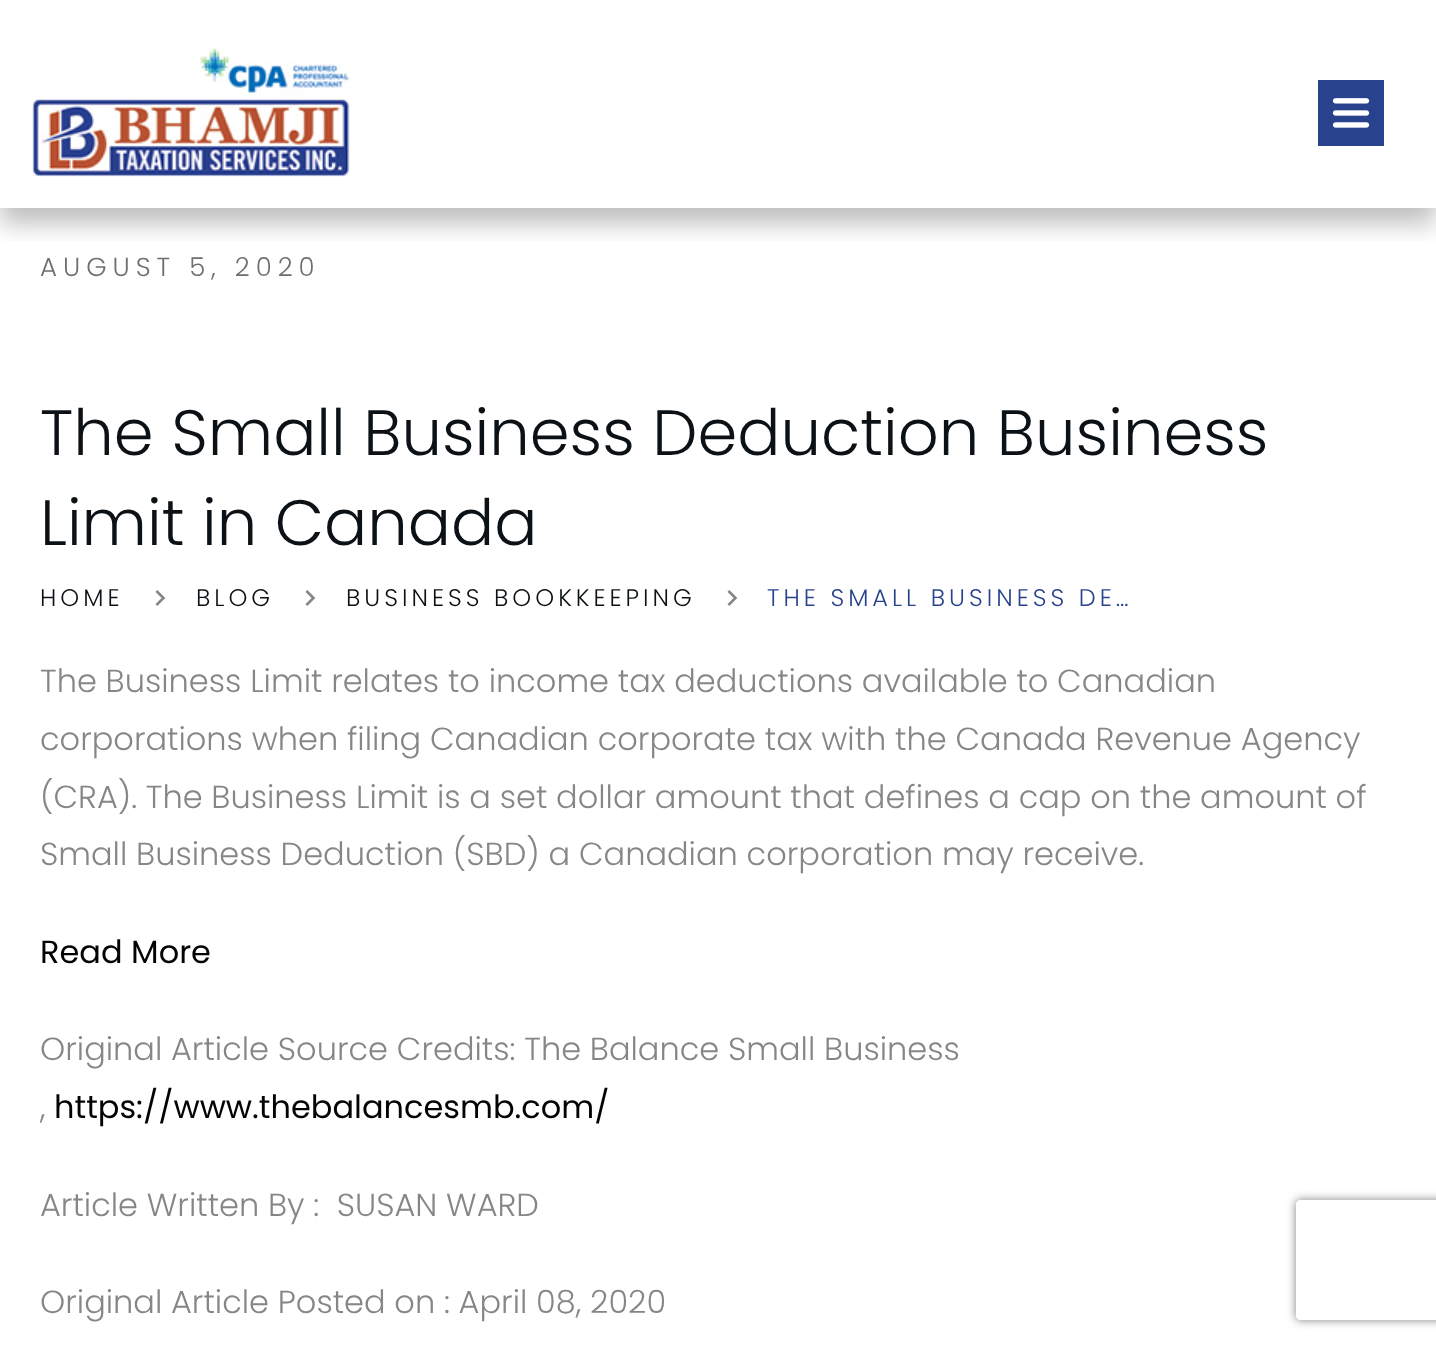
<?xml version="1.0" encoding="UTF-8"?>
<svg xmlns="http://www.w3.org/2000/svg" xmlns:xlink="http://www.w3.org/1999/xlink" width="1436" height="1348">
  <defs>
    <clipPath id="clip1"><rect x="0" y="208" width="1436" height="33" /></clipPath>
    <clipPath id="clip2"><path d="M 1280 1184 h 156 v 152 h -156 z m 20 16 h 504 c 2 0 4 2 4 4 v 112 c 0 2 -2 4 -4 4 h -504 c -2 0 -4 -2 -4 -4 v -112 c 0 -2 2 -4 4 -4 z" clip-rule="evenodd" /></clipPath>
  </defs>
  <rect width="100%" height="100%" fill="#ffffff" />
  <g clip-path="url(#clip1)">
    <rect y="16" width="1436" height="208" fill="#000000" fill-opacity="0.25" filter="blur(12px)" />
  </g>
  <image x="32" y="47" width="318" height="130" xlink:href="image1.png" />
  <image x="1318" y="80" width="66" height="66" xlink:href="image2.png" />
  <image x="155" y="590" width="11" height="16" xlink:href="image3.png" />
  <image x="305" y="590" width="11" height="16" xlink:href="image3.png" />
  <image x="727" y="590" width="11" height="16" xlink:href="image3.png" />
  <g clip-path="url(#clip2)">
    <rect x="1296" y="1200" width="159" height="120" rx="4" fill="#808080" filter="blur(5px)" />
  </g>
  <text x="40" y="276" style="font-family: Poppins; font-size: 26px; font-weight: 300; letter-spacing: 6px; fill: #6e6e6e">AUGUST 5, 2020</text>
  <text x="40" y="455" style="font-family: Poppins; font-size: 64px; font-weight: 300; fill: #0c1115">The Small Business Deduction Business</text>
  <text x="40" y="545" style="font-family: Poppins; font-size: 64px; font-weight: 300; fill: #0c1115">Limit in Canada</text>
  <text x="40" y="606" style="font-family: Poppins; font-size: 24px; font-weight: 300; letter-spacing: 4px; fill: #0c1115">HOME</text>
  <text x="196" y="606" style="font-family: Poppins; font-size: 24px; font-weight: 300; letter-spacing: 4px; fill: #0c1115">BLOG</text>
  <text x="346" y="606" style="font-family: Poppins; font-size: 24px; font-weight: 300; letter-spacing: 4px; fill: #0c1115">BUSINESS BOOKKEEPING</text>
  <text x="767" y="606" style="font-family: Poppins; font-size: 24px; font-weight: 300; letter-spacing: 4px; fill: #29428e">THE SMALL BUSINESS DE…</text>
  <text x="40" y="692" style="font-family: Poppins; font-size: 32px; font-weight: 300; fill: #858687">The Business Limit relates to income tax deductions available to Canadian</text>
  <text x="40" y="750" style="font-family: Poppins; font-size: 32px; font-weight: 300; fill: #858687">corporations when filing Canadian corporate tax with the Canada Revenue Agency</text>
  <text x="40" y="808" style="font-family: Poppins; font-size: 32px; font-weight: 300; fill: #858687">(CRA). The Business Limit is a set dollar amount that defines a cap on the amount of</text>
  <text x="40" y="865" style="font-family: Poppins; font-size: 32px; font-weight: 300; fill: #858687">Small Business Deduction (SBD) a Canadian corporation may receive.</text>
  <text x="40" y="963" style="font-family: Poppins; font-size: 32px; fill: #030301">Read More</text>
  <text x="40" y="1060" style="font-family: Poppins; font-size: 32px; font-weight: 300; fill: #858687">Original Article Source Credits: The Balance Small Business</text>
  <text x="40" y="1118" style="font-family: Poppins; font-size: 32px; font-weight: 300; fill: #858687">,</text>
  <text x="54" y="1118" style="font-family: Poppins; font-size: 32px; fill: #030301">https://www.thebalancesmb.com/</text>
  <text x="40" y="1216" style="font-family: Poppins; font-size: 32px; font-weight: 300; fill: #858687" xml:space="preserve">Article Written By :  SUSAN WARD</text>
  <text x="40" y="1313" style="font-family: Poppins; font-size: 32px; font-weight: 300; fill: #858687">Original Article Posted on : April 08, 2020</text>
</svg>
